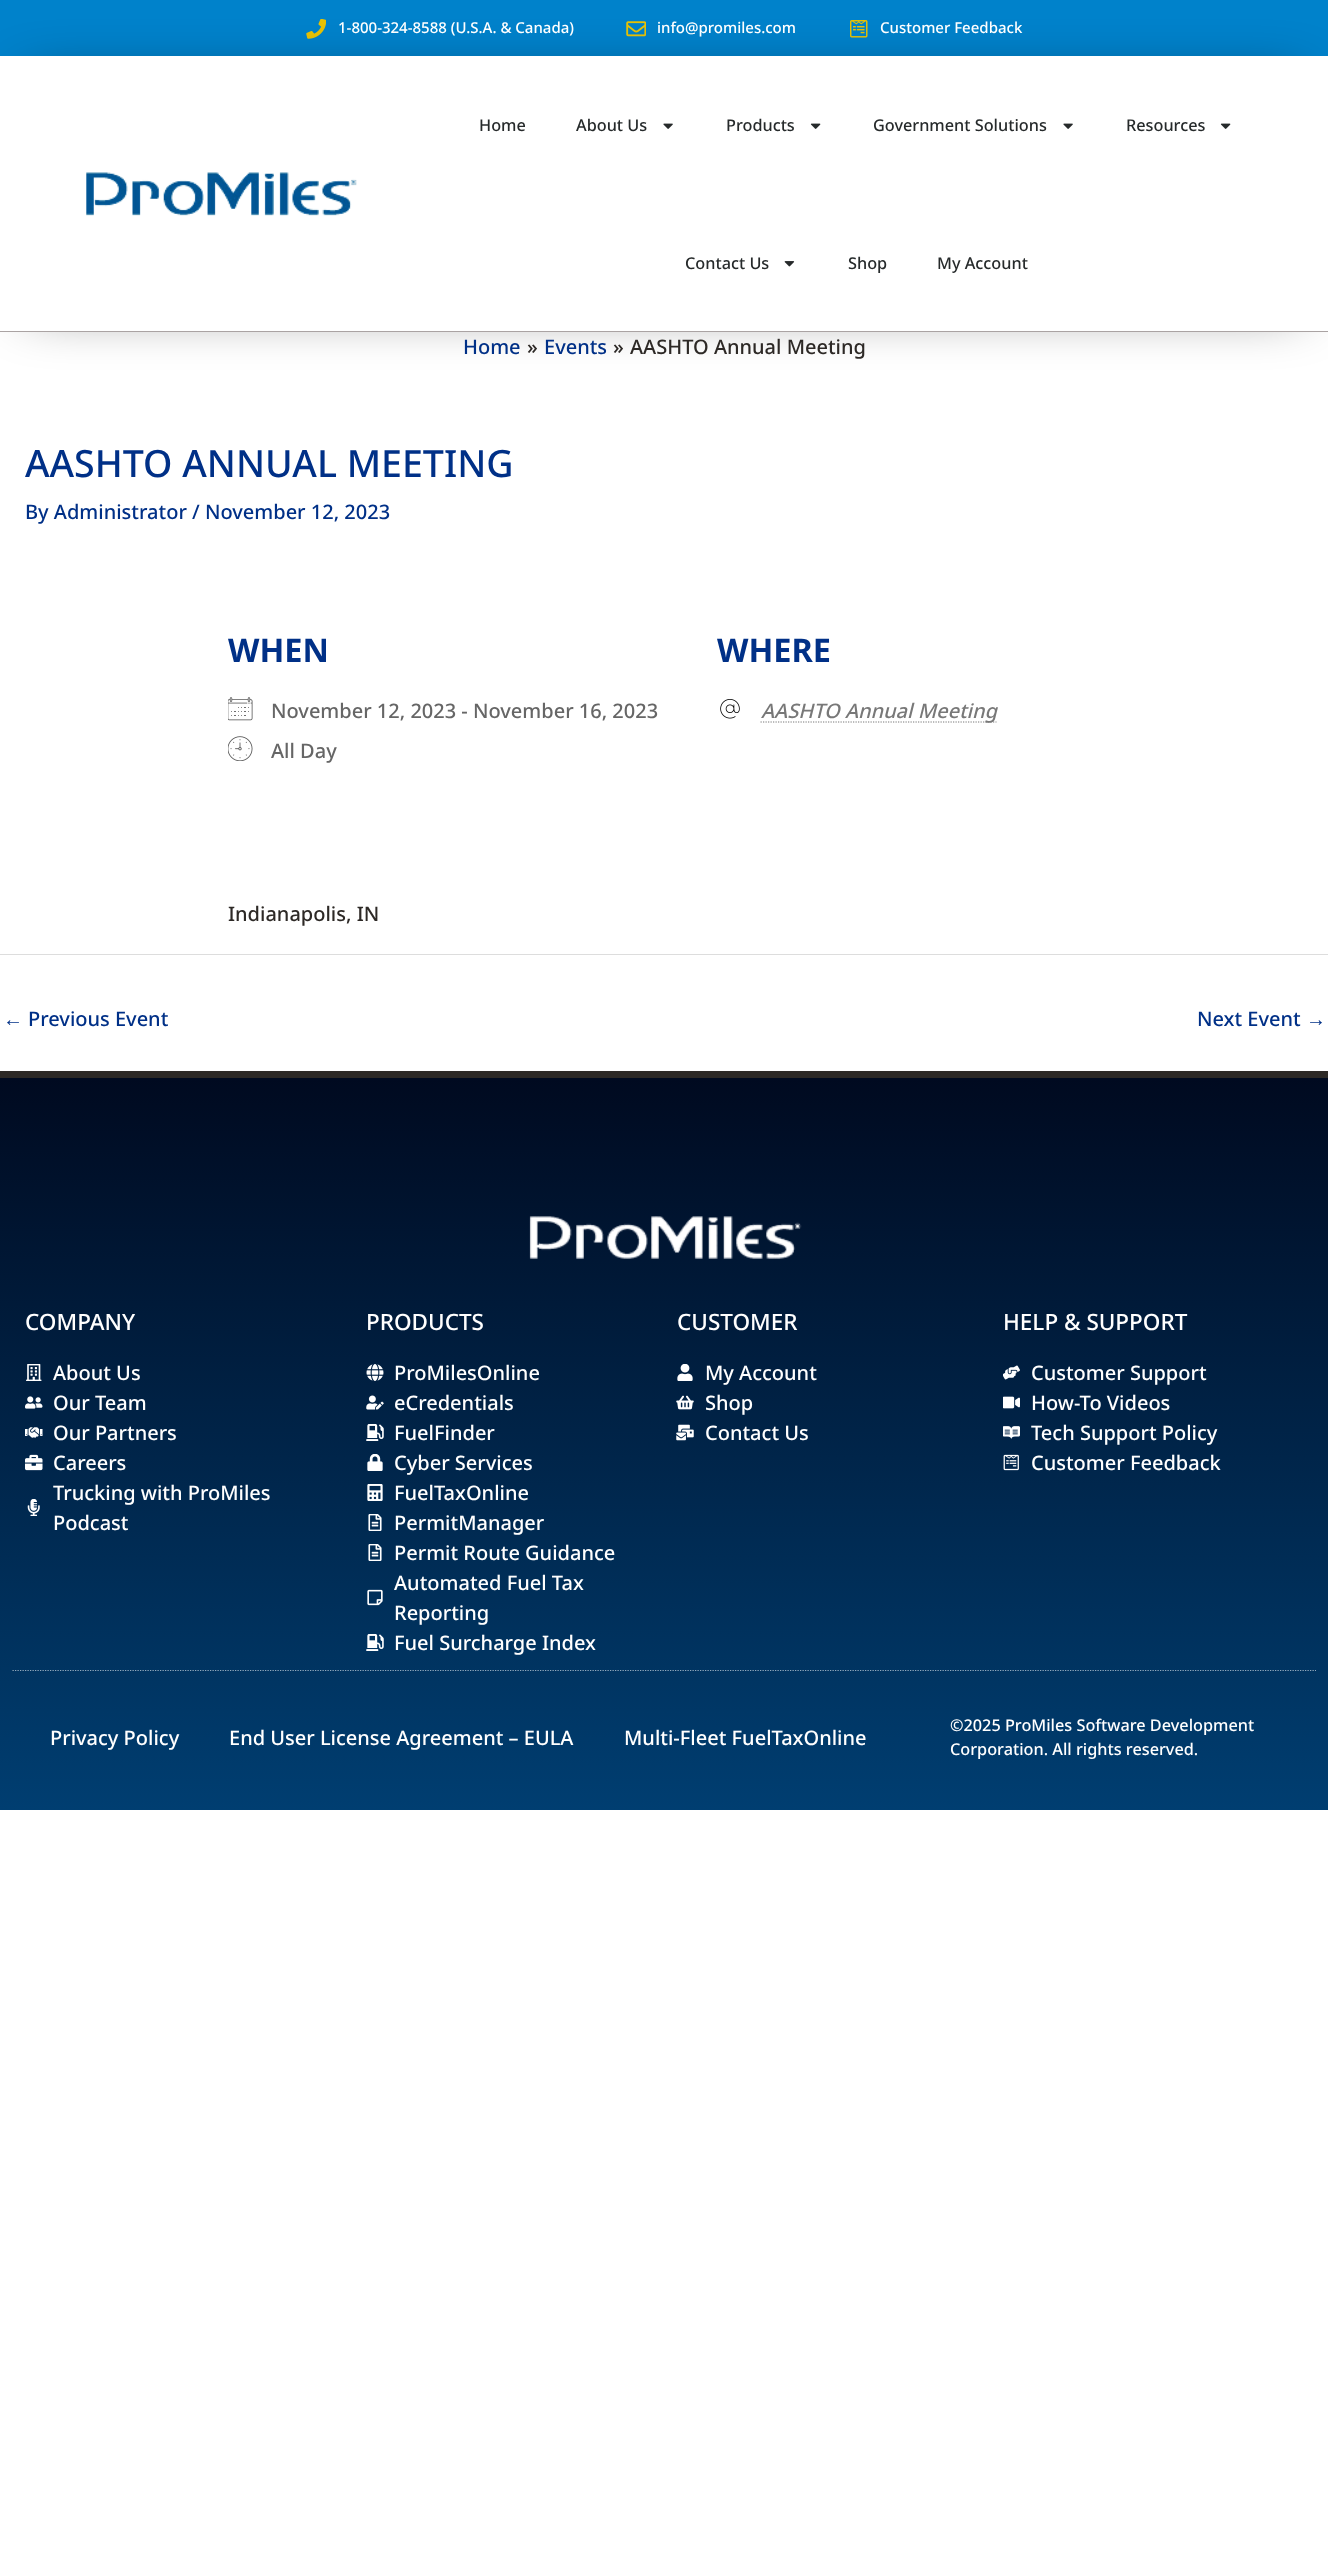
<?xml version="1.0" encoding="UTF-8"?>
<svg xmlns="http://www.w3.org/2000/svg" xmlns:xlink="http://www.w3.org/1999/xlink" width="1328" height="2575">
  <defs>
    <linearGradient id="g1" gradientUnits="userSpaceOnUse" x1="664" y1="1078" x2="664" y2="1810"><stop offset="0" stop-color="#000a20" /><stop offset="1" stop-color="#003e71" /></linearGradient>
  </defs>
  <rect width="100%" height="100%" fill="#ffffff" />
  <rect width="1328" height="56" fill="#0082cb" />
  <image x="306" y="19" width="20" height="20" xlink:href="image1.png" />
  <image x="626" y="21" width="20" height="16" xlink:href="image2.png" />
  <image x="850" y="20" width="18" height="18" xlink:href="image3.png" />
  <rect x="28" y="84" width="1273" height="221" fill="#000000" fill-opacity="0.61" filter="blur(28px)" />
  <rect y="56" width="1328" height="275" fill="#ffffff" />
  <rect y="331" width="1328" height="1" fill="#aaa3a3" />
  <image x="86" y="172" width="271" height="44" xlink:href="image4.png" />
  <image x="663" y="123" width="10" height="6" xlink:href="image5.png" />
  <image x="810" y="123" width="11" height="6" xlink:href="image6.png" />
  <image x="1063" y="123" width="10" height="6" xlink:href="image5.png" />
  <image x="1220" y="123" width="11" height="6" xlink:href="image6.png" />
  <image x="784" y="261" width="11" height="6" xlink:href="image7.png" />
  <image x="228" y="697" width="25" height="24" xlink:href="image8.png" />
  <image x="228" y="736" width="25" height="25" xlink:href="image9.png" />
  <image x="720" y="699" width="20" height="20" xlink:href="image10.png" />
  <path d="M 760.5 722 h 236" fill="none" stroke="#787878" stroke-width="1.2" stroke-dasharray="1.25 1.25" />
  <rect y="954" width="1328" height="1" fill="#dddddd" />
  <rect y="1078" width="1328" height="732" fill="url(#g1)" />
  <rect y="1071" width="1328" height="7" fill="#2d2926" />
  <image x="529" y="1216" width="273" height="43" xlink:href="image11.png" />
  <image x="26" y="1364" width="16" height="17" xlink:href="image12.png" />
  <image x="25" y="1396" width="18" height="13" xlink:href="image13.png" />
  <image x="25" y="1427" width="18" height="11" xlink:href="image14.png" />
  <image x="25" y="1454" width="18" height="17" xlink:href="image15.png" />
  <image x="27" y="1499" width="13" height="17" xlink:href="image16.png" />
  <image x="366" y="1364" width="18" height="17" xlink:href="image17.png" />
  <image x="366" y="1395" width="18" height="15" xlink:href="image18.png" />
  <image x="366" y="1424" width="18" height="17" xlink:href="image19.png" />
  <image x="367" y="1454" width="16" height="17" xlink:href="image20.png" />
  <image x="367" y="1484" width="16" height="17" xlink:href="image21.png" />
  <image x="368" y="1514" width="14" height="17" xlink:href="image22.png" />
  <image x="368" y="1544" width="14" height="17" xlink:href="image23.png" />
  <image x="367" y="1589" width="16" height="17" xlink:href="image24.png" />
  <image x="366" y="1634" width="18" height="17" xlink:href="image25.png" />
  <image x="677" y="1364" width="16" height="17" xlink:href="image26.png" />
  <image x="676" y="1395" width="18" height="15" xlink:href="image27.png" />
  <image x="676" y="1424" width="18" height="17" xlink:href="image28.png" />
  <image x="1003" y="1365" width="17" height="15" xlink:href="image29.png" />
  <image x="1003" y="1396" width="17" height="13" xlink:href="image30.png" />
  <image x="1003" y="1426" width="17" height="13" xlink:href="image31.png" />
  <image x="1003" y="1454" width="16" height="17" xlink:href="image32.png" />
  <path d="M 12.5 1670.5 h 1303.5" fill="none" stroke="#96acbe" stroke-width="1.2" stroke-dasharray="1.25 1.25" />
  <text x="338" y="33" style="font-family: Noto Sans; font-size: 15px; font-weight: 500; fill: #ffffff">1-800-324-8588 (U.S.A. &amp; Canada)</text>
  <text x="657" y="33" style="font-family: Noto Sans; font-size: 15px; font-weight: 500; fill: #ffffff">info@promiles.com</text>
  <text x="880" y="33" style="font-family: Noto Sans; font-size: 15px; font-weight: 500; fill: #ffffff">Customer Feedback</text>
  <text x="479" y="131" style="font-family: Noto Sans; font-size: 16.25px; font-weight: 500; fill: #262a2b">Home</text>
  <text x="576" y="131" style="font-family: Noto Sans; font-size: 16.25px; font-weight: 500; fill: #262a2b">About Us</text>
  <text x="726" y="131" style="font-family: Noto Sans; font-size: 16.25px; font-weight: 500; fill: #262a2b">Products</text>
  <text x="873" y="131" style="font-family: Noto Sans; font-size: 16.25px; font-weight: 500; fill: #262a2b">Government Solutions</text>
  <text x="1126" y="131" style="font-family: Noto Sans; font-size: 16.25px; font-weight: 500; fill: #262a2b">Resources</text>
  <text x="685" y="269" style="font-family: Noto Sans; font-size: 16.25px; font-weight: 500; fill: #262a2b">Contact Us</text>
  <text x="848" y="269" style="font-family: Noto Sans; font-size: 16.25px; font-weight: 500; fill: #262a2b">Shop</text>
  <text x="937" y="269" style="font-family: Noto Sans; font-size: 16.25px; font-weight: 500; fill: #262a2b">My Account</text>
  <text x="463" y="354" style="font-family: Noto Sans; font-size: 20px; font-weight: 500; fill: #003087">Home</text>
  <text x="527" y="354" style="font-family: Noto Sans; font-size: 20px; font-weight: 500; fill: #2d2926">»</text>
  <text x="544" y="354" style="font-family: Noto Sans; font-size: 20px; font-weight: 500; fill: #003087">Events</text>
  <text x="613" y="354" style="font-family: Noto Sans; font-size: 20px; font-weight: 500; fill: #2d2926">»</text>
  <text x="630" y="354" style="font-family: Noto Sans; font-size: 20px; font-weight: 500; fill: #2d2926">AASHTO Annual Meeting</text>
  <text x="25" y="477" style="font-family: Noto Sans; font-size: 37.5px; font-weight: 500; fill: #003087">AASHTO ANNUAL MEETING</text>
  <text x="25" y="519" style="font-family: Noto Sans; font-size: 20px; font-weight: 500; fill: #003087">By Administrator / November 12, 2023</text>
  <text x="228" y="662" style="font-family: Noto Sans; font-size: 32.5px; font-weight: bold; fill: #003087">WHEN</text>
  <text x="271" y="718" style="font-family: Noto Sans; font-size: 20px; font-weight: 500; fill: #666666">November 12, 2023 - November 16, 2023</text>
  <text x="271" y="758" style="font-family: Noto Sans; font-size: 20px; font-weight: 500; fill: #666666">All Day</text>
  <text x="717" y="662" style="font-family: Noto Sans; font-size: 32.5px; font-weight: bold; fill: #003087">WHERE</text>
  <text x="761" y="718" style="font-family: Noto Sans; font-size: 20px; font-weight: 500; font-style: italic; fill: #787878">AASHTO Annual Meeting</text>
  <text x="228" y="921" style="font-family: Noto Sans; font-size: 20px; font-weight: 500; fill: #2d2926">Indianapolis, IN</text>
  <text x="3" y="1026" style="font-family: Liberation Sans; font-size: 20px; fill: #003087">←</text>
  <text x="28" y="1026" style="font-family: Noto Sans; font-size: 20px; font-weight: 500; fill: #003087">Previous Event</text>
  <text x="1197" y="1026" style="font-family: Noto Sans; font-size: 20px; font-weight: 500; fill: #003087">Next Event</text>
  <text x="1306" y="1026" style="font-family: Liberation Sans; font-size: 20px; fill: #003087">→</text>
  <text x="25" y="1330" style="font-family: Noto Sans; font-size: 22.5px; font-weight: 500; fill: #ffffff">COMPANY</text>
  <text x="53" y="1380" style="font-family: Noto Sans; font-size: 20px; font-weight: 500; fill: #ffffff">About Us</text>
  <text x="53" y="1410" style="font-family: Noto Sans; font-size: 20px; font-weight: 500; fill: #ffffff">Our Team</text>
  <text x="53" y="1440" style="font-family: Noto Sans; font-size: 20px; font-weight: 500; fill: #ffffff">Our Partners</text>
  <text x="53" y="1470" style="font-family: Noto Sans; font-size: 20px; font-weight: 500; fill: #ffffff">Careers</text>
  <text x="53" y="1500" style="font-family: Noto Sans; font-size: 20px; font-weight: 500; fill: #ffffff">Trucking with ProMiles</text>
  <text x="53" y="1530" style="font-family: Noto Sans; font-size: 20px; font-weight: 500; fill: #ffffff">Podcast</text>
  <text x="366" y="1330" style="font-family: Noto Sans; font-size: 22.5px; font-weight: 500; fill: #ffffff">PRODUCTS</text>
  <text x="394" y="1380" style="font-family: Noto Sans; font-size: 20px; font-weight: 500; fill: #ffffff">ProMilesOnline</text>
  <text x="394" y="1410" style="font-family: Noto Sans; font-size: 20px; font-weight: 500; fill: #ffffff">eCredentials</text>
  <text x="394" y="1440" style="font-family: Noto Sans; font-size: 20px; font-weight: 500; fill: #ffffff">FuelFinder</text>
  <text x="394" y="1470" style="font-family: Noto Sans; font-size: 20px; font-weight: 500; fill: #ffffff">Cyber Services</text>
  <text x="394" y="1500" style="font-family: Noto Sans; font-size: 20px; font-weight: 500; fill: #ffffff">FuelTaxOnline</text>
  <text x="394" y="1530" style="font-family: Noto Sans; font-size: 20px; font-weight: 500; fill: #ffffff">PermitManager</text>
  <text x="394" y="1560" style="font-family: Noto Sans; font-size: 20px; font-weight: 500; fill: #ffffff">Permit Route Guidance</text>
  <text x="394" y="1590" style="font-family: Noto Sans; font-size: 20px; font-weight: 500; fill: #ffffff">Automated Fuel Tax</text>
  <text x="394" y="1620" style="font-family: Noto Sans; font-size: 20px; font-weight: 500; fill: #ffffff">Reporting</text>
  <text x="394" y="1650" style="font-family: Noto Sans; font-size: 20px; font-weight: 500; fill: #ffffff">Fuel Surcharge Index</text>
  <text x="677" y="1330" style="font-family: Noto Sans; font-size: 22.5px; font-weight: 500; fill: #ffffff">CUSTOMER</text>
  <text x="705" y="1380" style="font-family: Noto Sans; font-size: 20px; font-weight: 500; fill: #ffffff">My Account</text>
  <text x="705" y="1410" style="font-family: Noto Sans; font-size: 20px; font-weight: 500; fill: #ffffff">Shop</text>
  <text x="705" y="1440" style="font-family: Noto Sans; font-size: 20px; font-weight: 500; fill: #ffffff">Contact Us</text>
  <text x="1003" y="1330" style="font-family: Noto Sans; font-size: 22.5px; font-weight: 500; fill: #ffffff">HELP &amp; SUPPORT</text>
  <text x="1031" y="1380" style="font-family: Noto Sans; font-size: 20px; font-weight: 500; fill: #ffffff">Customer Support</text>
  <text x="1031" y="1410" style="font-family: Noto Sans; font-size: 20px; font-weight: 500; fill: #ffffff">How-To Videos</text>
  <text x="1031" y="1440" style="font-family: Noto Sans; font-size: 20px; font-weight: 500; fill: #ffffff">Tech Support Policy</text>
  <text x="1031" y="1470" style="font-family: Noto Sans; font-size: 20px; font-weight: 500; fill: #ffffff">Customer Feedback</text>
  <text x="50" y="1745" style="font-family: Noto Sans; font-size: 20px; font-weight: 500; fill: #ffffff">Privacy Policy</text>
  <text x="229" y="1745" style="font-family: Noto Sans; font-size: 20px; font-weight: 500; fill: #ffffff">End User License Agreement – EULA</text>
  <text x="624" y="1745" style="font-family: Noto Sans; font-size: 20px; font-weight: 500; fill: #ffffff">Multi-Fleet FuelTaxOnline</text>
  <text x="950" y="1731" style="font-family: Noto Sans; font-size: 16.25px; font-weight: 500; fill: #ffffff">©2025 ProMiles Software Development</text>
  <text x="950" y="1755" style="font-family: Noto Sans; font-size: 16.25px; font-weight: 500; fill: #ffffff">Corporation. All rights reserved.</text>
</svg>
